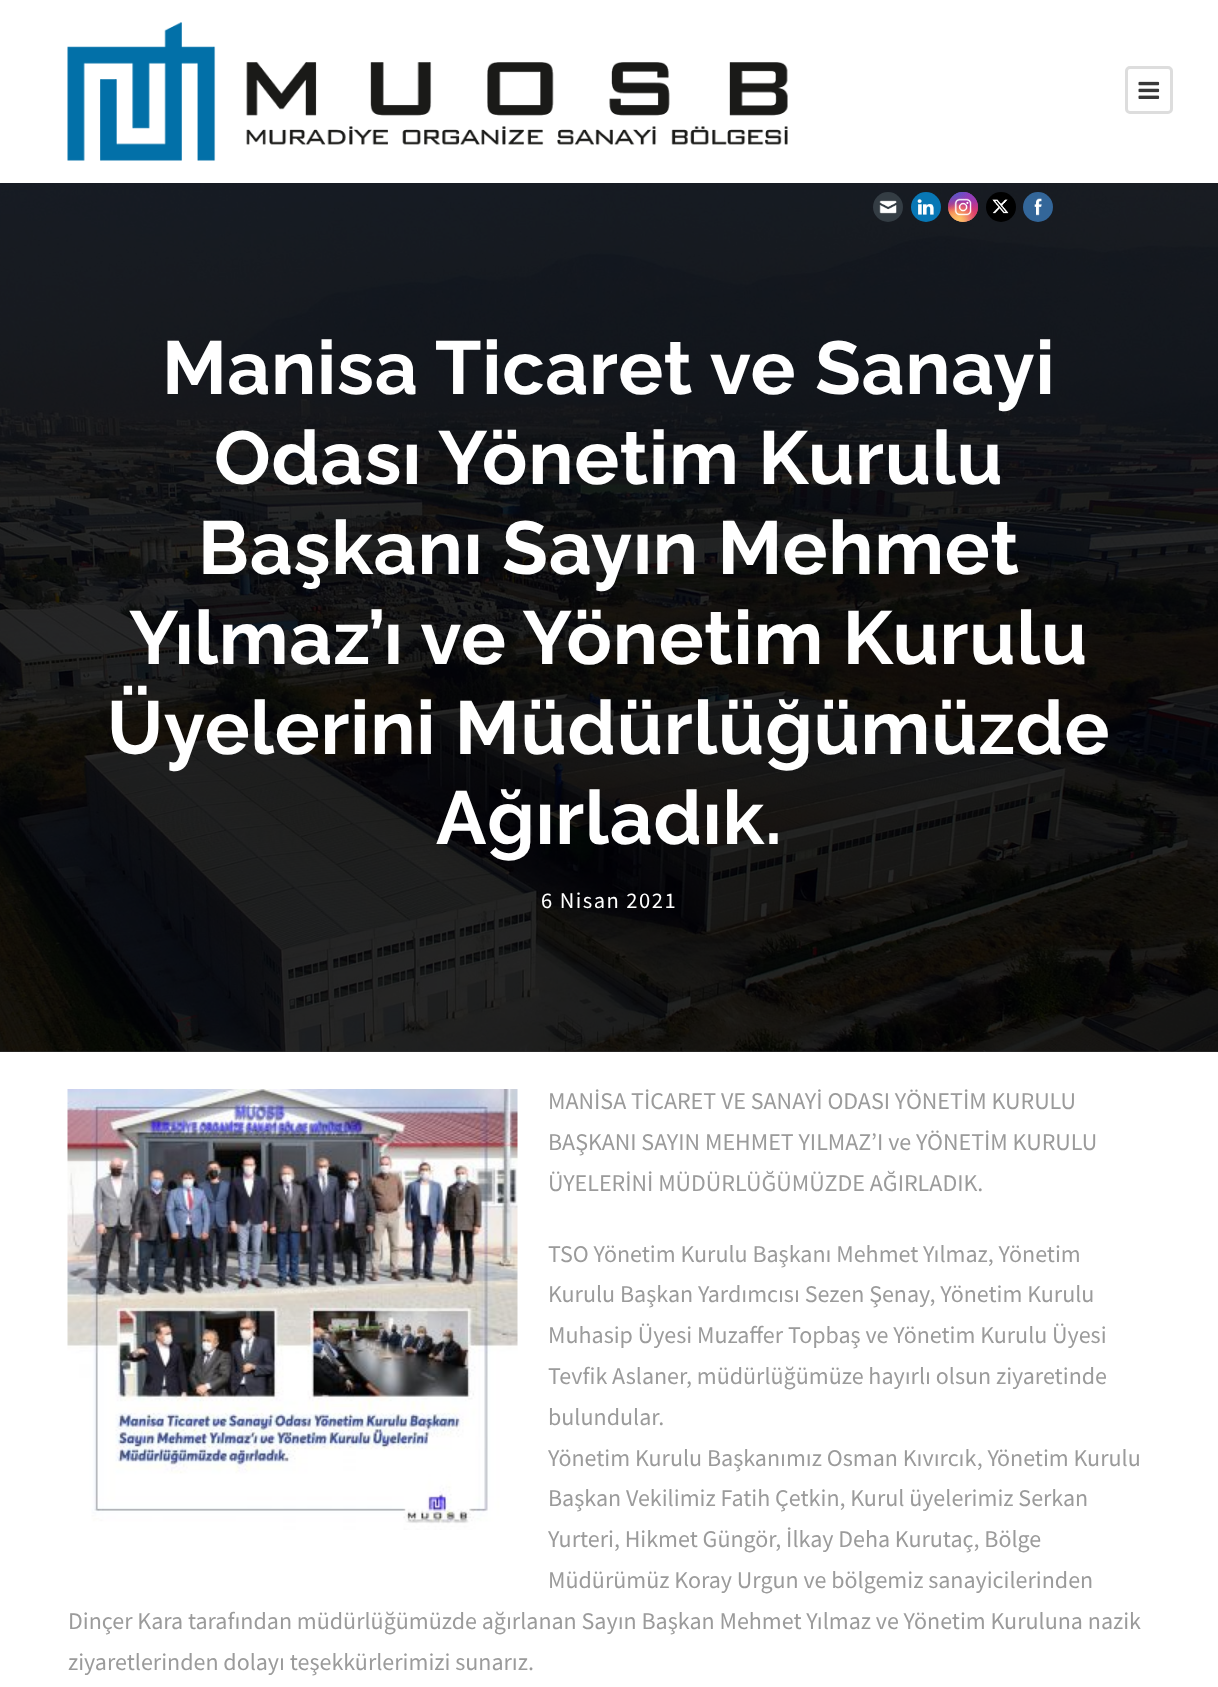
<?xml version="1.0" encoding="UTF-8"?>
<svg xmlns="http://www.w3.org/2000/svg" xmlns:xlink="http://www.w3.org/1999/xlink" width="1218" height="1687">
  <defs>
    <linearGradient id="g1" gradientUnits="userSpaceOnUse" x1="963" y1="192" x2="963" y2="222"><stop offset="0" stop-color="#6559ca" /><stop offset="0.3" stop-color="#bc318f" /><stop offset="0.5" stop-color="#e33f5f" /><stop offset="0.7" stop-color="#f77638" /><stop offset="1" stop-color="#fec66d" /></linearGradient>
    <radialGradient id="g2" gradientUnits="userSpaceOnUse" cx="978" cy="222" r="42"><stop offset="0" stop-color="#d9317a" /><stop offset="1" stop-color="#d9317a" stop-opacity="0" /></radialGradient>
    <radialGradient id="g3" gradientUnits="userSpaceOnUse" cx="0" cy="0" r="1" gradientTransform="matrix(25 0 0 51 966 186)"><stop offset="0" stop-color="#893dc2" /><stop offset="0.5" stop-color="#893dc2" stop-opacity="0" /></radialGradient>
    <radialGradient id="g4" gradientUnits="userSpaceOnUse" cx="978" cy="192" r="42"><stop offset="0" stop-color="#893dc2" /><stop offset="0.5" stop-color="#893dc2" stop-opacity="0" /></radialGradient>
    <radialGradient id="g5" gradientUnits="userSpaceOnUse" cx="0" cy="0" r="1" gradientTransform="matrix(34 0 0 64 954 177)"><stop offset="0" stop-color="#5258cf" /><stop offset="0.5" stop-color="#5258cf" stop-opacity="0" /></radialGradient>
    <radialGradient id="g6" gradientUnits="userSpaceOnUse" cx="0" cy="0" r="1" gradientTransform="matrix(42 0 0 53 948 185)"><stop offset="0" stop-color="#5258cf" /><stop offset="0.5" stop-color="#5258cf" stop-opacity="0" /></radialGradient>
    <radialGradient id="g7" gradientUnits="userSpaceOnUse" cx="948" cy="234" r="52"><stop offset="0" stop-color="#fec564" /><stop offset="0.5" stop-color="#fec564" stop-opacity="0" /></radialGradient>
    <radialGradient id="g8" gradientUnits="userSpaceOnUse" cx="959" cy="219" r="33"><stop offset="0" stop-color="#fec564" /><stop offset="0.5" stop-color="#fec564" stop-opacity="0" /></radialGradient>
  </defs>
  <rect width="100%" height="100%" fill="#ffffff" />
  <image x="67" y="22" width="721" height="139" xlink:href="image1.png" />
  <rect x="1126.5" y="67.5" width="45" height="45" rx="3.5" fill="none" stroke="#dddddd" stroke-width="3" />
  <image x="1138" y="81" width="22" height="18" xlink:href="image2.png" />
  <image x="0" y="183" width="1218" height="869" xlink:href="image8.png" />
  <rect y="183" width="1218" height="869" fill="#000000" fill-opacity="0.8" />
  <circle cx="888" cy="207" r="15" fill="#343d44" />
  <image x="879" y="200" width="18" height="14" xlink:href="image3.png" />
  <circle cx="926" cy="207" r="15" fill="#0877b5" />
  <image x="917" y="198" width="17" height="17" xlink:href="image4.png" />
  <circle cx="963" cy="207" r="15" fill="url(#g1)" />
  <circle cx="963" cy="207" r="15" fill="url(#g2)" />
  <circle cx="963" cy="207" r="15" fill="url(#g3)" />
  <circle cx="963" cy="207" r="15" fill="url(#g4)" />
  <circle cx="963" cy="207" r="15" fill="url(#g5)" />
  <circle cx="963" cy="207" r="15" fill="url(#g6)" />
  <circle cx="963" cy="207" r="15" fill="url(#g7)" />
  <circle cx="963" cy="207" r="15" fill="url(#g8)" />
  <image x="954" y="198" width="18" height="18" xlink:href="image5.png" />
  <circle cx="1001" cy="207" r="15" fill="#000000" />
  <image x="992" y="199" width="17" height="15" xlink:href="image6.png" />
  <circle cx="1038" cy="207" r="15" fill="#336699" />
  <image x="1034" y="198" width="8" height="18" xlink:href="image7.png" />
  <image x="67" y="1089" width="451" height="441" xlink:href="image9.png" />
  <text x="162" y="394" style="font-family: Raleway; font-size: 75px; font-weight: bold; letter-spacing: 0.75px; fill: #ffffff">Manisa Ticaret ve Sanayi</text>
  <text x="214" y="484" style="font-family: Raleway; font-size: 75px; font-weight: bold; letter-spacing: 0.75px; fill: #ffffff">Odası Yönetim Kurulu</text>
  <text x="198" y="574" style="font-family: Raleway; font-size: 75px; font-weight: bold; letter-spacing: 0.75px; fill: #ffffff">Başkanı Sayın Mehmet</text>
  <text x="129" y="664" style="font-family: Raleway; font-size: 75px; font-weight: bold; letter-spacing: 0.75px; fill: #ffffff">Yılmaz’ı ve Yönetim Kurulu</text>
  <text x="107" y="754" style="font-family: Raleway; font-size: 75px; font-weight: bold; letter-spacing: 0.75px; fill: #ffffff">Üyelerini Müdürlüğümüzde</text>
  <text x="436" y="844" style="font-family: Raleway; font-size: 75px; font-weight: bold; letter-spacing: 0.75px; fill: #ffffff">Ağırladık.</text>
  <text x="541" y="908" style="font-family: Source Sans Pro; font-size: 22.5px; letter-spacing: 1.5px; fill: #ffffff">6 Nisan 2021</text>
  <text x="548" y="1109" style="font-family: Source Sans Pro; font-size: 24px; fill: #9b9b9b">MANİSA TİCARET VE SANAYİ ODASI YÖNETİM KURULU</text>
  <text x="548" y="1150" style="font-family: Source Sans Pro; font-size: 24px; fill: #9b9b9b">BAŞKANI SAYIN MEHMET YILMAZ’I ve YÖNETİM KURULU</text>
  <text x="548" y="1191" style="font-family: Source Sans Pro; font-size: 24px; fill: #9b9b9b">ÜYELERİNİ MÜDÜRLÜĞÜMÜZDE AĞIRLADIK.</text>
  <text x="548" y="1262" style="font-family: Source Sans Pro; font-size: 24px; fill: #9b9b9b">TSO Yönetim Kurulu Başkanı Mehmet Yılmaz, Yönetim</text>
  <text x="548" y="1302" style="font-family: Source Sans Pro; font-size: 24px; fill: #9b9b9b">Kurulu Başkan Yardımcısı Sezen Şenay, Yönetim Kurulu</text>
  <text x="548" y="1343" style="font-family: Source Sans Pro; font-size: 24px; fill: #9b9b9b">Muhasip Üyesi Muzaffer Topbaş ve Yönetim Kurulu Üyesi</text>
  <text x="548" y="1384" style="font-family: Source Sans Pro; font-size: 24px; fill: #9b9b9b">Tevfik Aslaner, müdürlüğümüze hayırlı olsun ziyaretinde</text>
  <text x="548" y="1425" style="font-family: Source Sans Pro; font-size: 24px; fill: #9b9b9b">bulundular.</text>
  <text x="548" y="1466" style="font-family: Source Sans Pro; font-size: 24px; fill: #9b9b9b">Yönetim Kurulu Başkanımız Osman Kıvırcık, Y</text>
  <text x="997" y="1466" style="font-family: Source Sans Pro; font-size: 24px; fill: #9b9b9b">önetim Kurulu</text>
  <text x="548" y="1506" style="font-family: Source Sans Pro; font-size: 24px; fill: #9b9b9b">Başkan Vekilimiz Fatih Çetkin, Kurul üyelerimiz Serkan</text>
  <text x="548" y="1547" style="font-family: Source Sans Pro; font-size: 24px; fill: #9b9b9b">Yurteri, Hikmet Güngör, İlkay Deha Kurutaç, Bölge</text>
  <text x="548" y="1588" style="font-family: Source Sans Pro; font-size: 24px; fill: #9b9b9b">Müdürümüz Koray Urgun ve bölgemiz sanayicilerinden</text>
  <text x="68" y="1629" style="font-family: Source Sans Pro; font-size: 24px; fill: #9b9b9b">Dinçer Kara tarafından müdürlüğümüzde ağırlanan Sayın Başkan Mehmet Yılmaz ve Yönetim Kuruluna nazik</text>
  <text x="68" y="1670" style="font-family: Source Sans Pro; font-size: 24px; fill: #9b9b9b">ziyaretlerinden dolayı teşekkürlerimizi sunarız.</text>
</svg>
